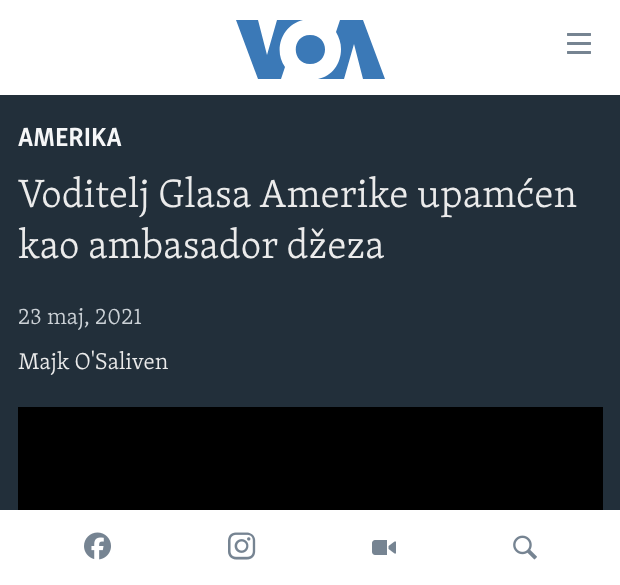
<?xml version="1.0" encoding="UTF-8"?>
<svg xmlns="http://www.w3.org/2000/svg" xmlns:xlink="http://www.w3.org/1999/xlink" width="620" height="585">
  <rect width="100%" height="100%" fill="#222f3a" />
  <rect width="620" height="95" fill="#ffffff" />
  <path d="M 285 67 l -4 12 h -23 l -22 -59 h 22 l 9 35 l 10 -35 h 26 c -21 5 -30 30 -18 47 z m 25 -32 c -19 0 -19 29 0 29 c 20 0 20 -29 0 -29 z m 31 14 c 0 15 -9 27 -23 30 h 26 l 10 -35 l 9 35 h 22 l -22 -59 h -23 l -4 12 c 3 5 5 11 5 17 z" fill="#3b79b7" />
  <image x="567" y="33" width="24" height="21" xlink:href="image1.png" />
  <rect y="510" width="620" height="75" fill="#ffffff" />
  <image x="84" y="532" width="27" height="28" xlink:href="image2.png" />
  <image x="228" y="532" width="28" height="28" xlink:href="image3.png" />
  <image x="372" y="540" width="24" height="15" xlink:href="image4.png" />
  <image x="513" y="535" width="24" height="25" xlink:href="image5.png" />
  <rect x="18" y="407" width="585" height="103" fill="#000000" />
  <text x="18" y="146" style="font-family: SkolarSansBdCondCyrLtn; font-size: 27px; font-weight: bold; fill: #f6f7f8">AMERIKA</text>
  <text x="18" y="207" style="font-family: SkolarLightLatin; font-size: 40.5px; font-weight: 300; fill: #ebebeb">Voditelj Glasa Amerike upamćen</text>
  <text x="18" y="258" style="font-family: SkolarLightLatin; font-size: 40.5px; font-weight: 300; fill: #ebebeb">kao ambasador džeza</text>
  <text x="18" y="324" style="font-family: SkolarLightLatin; font-size: 23.5px; font-weight: 300; fill: #cbd1d6">23 maj, 2021</text>
  <text x="18" y="369" style="font-family: SkolarLightLatin; font-size: 23.5px; font-weight: 300; fill: #ebebeb">Majk O'Saliven</text>
</svg>
